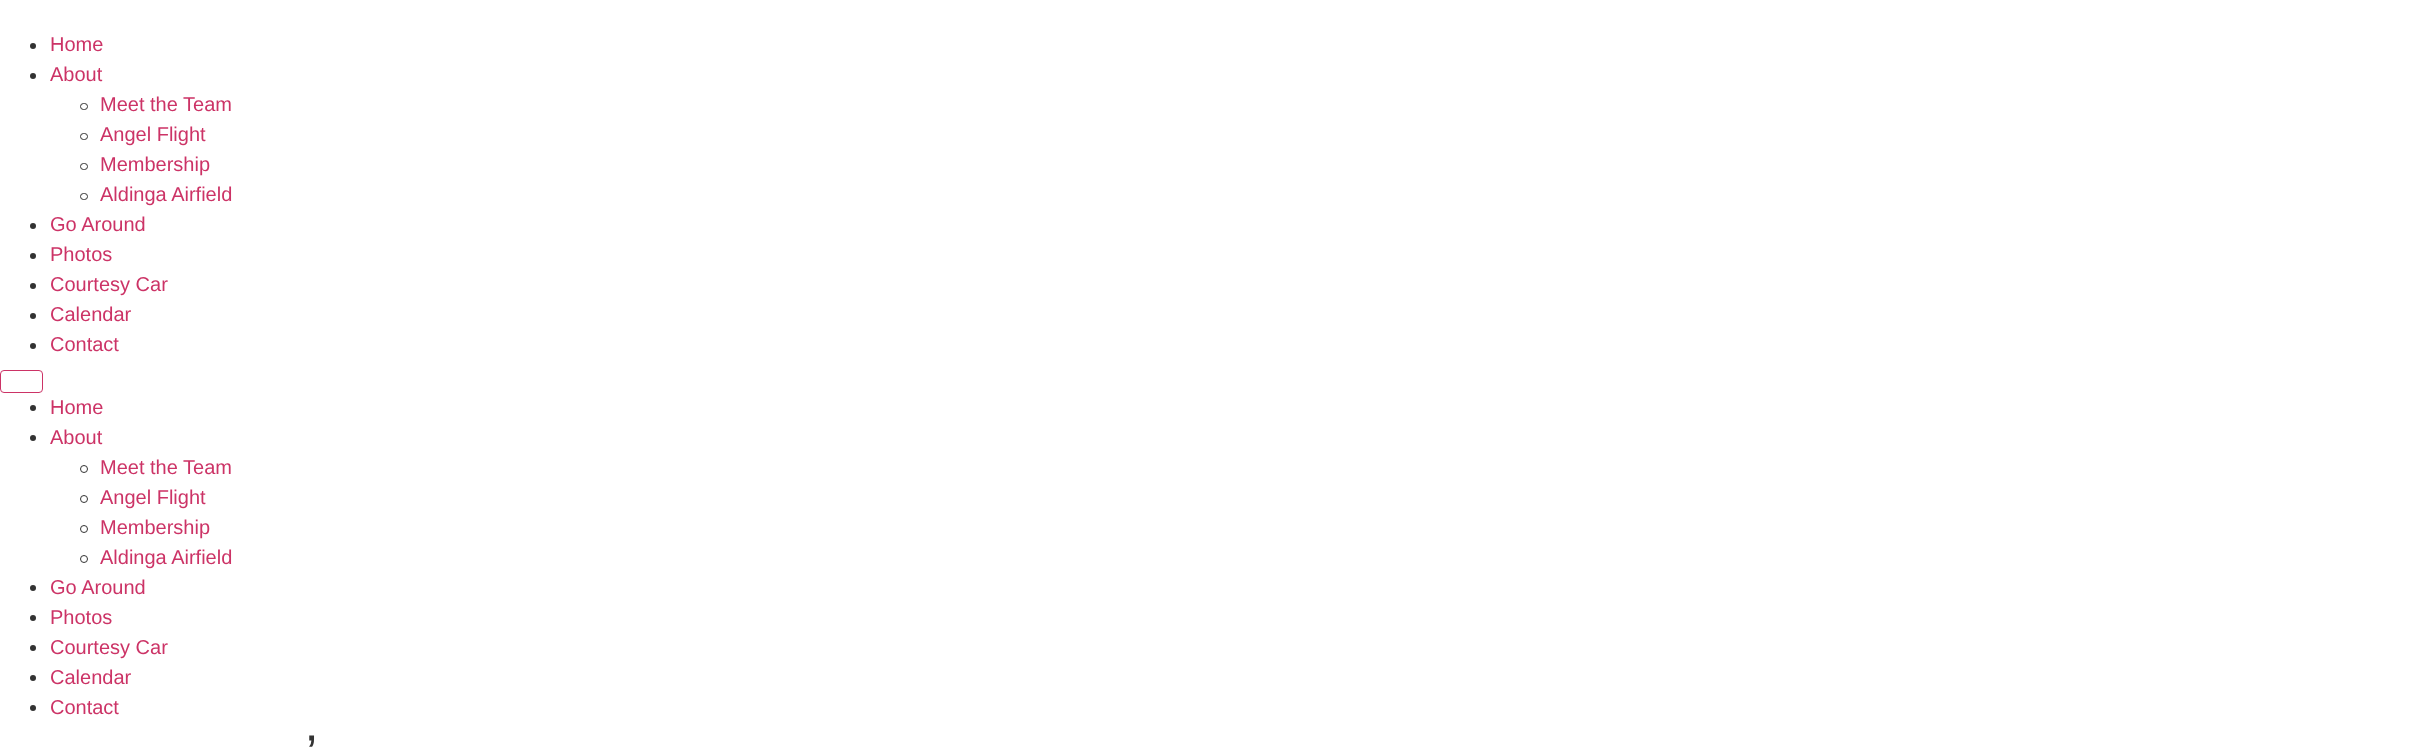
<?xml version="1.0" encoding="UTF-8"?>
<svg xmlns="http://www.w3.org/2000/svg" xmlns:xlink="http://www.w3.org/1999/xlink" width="2430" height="753">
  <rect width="100%" height="100%" fill="#ffffff" />
  <circle cx="33" cy="46" r="3" fill="#333333" />
  <circle cx="33" cy="76" r="3" fill="#333333" />
  <rect x="80.5" y="103.5" width="7" height="6" rx="3" fill="none" stroke="#333333" />
  <rect x="80.5" y="133.5" width="7" height="6" rx="3" fill="none" stroke="#333333" />
  <rect x="80.5" y="163.5" width="7" height="6" rx="3" fill="none" stroke="#333333" />
  <rect x="80.5" y="193.5" width="7" height="6" rx="3" fill="none" stroke="#333333" />
  <circle cx="33" cy="226" r="3" fill="#333333" />
  <circle cx="33" cy="256" r="3" fill="#333333" />
  <circle cx="33" cy="286" r="3" fill="#333333" />
  <circle cx="33" cy="316" r="3" fill="#333333" />
  <circle cx="33" cy="346" r="3" fill="#333333" />
  <rect x="0.5" y="370.5" width="42" height="22" rx="3.5" fill="none" stroke="#cc3366" />
  <circle cx="33" cy="408" r="3" fill="#333333" />
  <circle cx="33" cy="438" r="3" fill="#333333" />
  <circle cx="84" cy="469" r="3.5" fill="none" stroke="#333333" />
  <circle cx="84" cy="499" r="3.5" fill="none" stroke="#333333" />
  <circle cx="84" cy="529" r="3.5" fill="none" stroke="#333333" />
  <circle cx="84" cy="559" r="3.5" fill="none" stroke="#333333" />
  <circle cx="33" cy="588" r="3" fill="#333333" />
  <circle cx="33" cy="618" r="3" fill="#333333" />
  <circle cx="33" cy="648" r="3" fill="#333333" />
  <circle cx="33" cy="678" r="3" fill="#333333" />
  <circle cx="33" cy="708" r="3" fill="#333333" />
  <text x="50" y="51" style="font-family: Liberation Sans; font-size: 20px; fill: #cc3366">Home</text>
  <text x="50" y="81" style="font-family: Liberation Sans; font-size: 20px; fill: #cc3366">About</text>
  <text x="100" y="111" style="font-family: Liberation Sans; font-size: 20px; fill: #cc3366">Meet the Team</text>
  <text x="100" y="141" style="font-family: Liberation Sans; font-size: 20px; fill: #cc3366">Angel Flight</text>
  <text x="100" y="171" style="font-family: Liberation Sans; font-size: 20px; fill: #cc3366">Membership</text>
  <text x="100" y="201" style="font-family: Liberation Sans; font-size: 20px; fill: #cc3366">Aldinga Airfield</text>
  <text x="50" y="231" style="font-family: Liberation Sans; font-size: 20px; fill: #cc3366">Go Around</text>
  <text x="50" y="261" style="font-family: Liberation Sans; font-size: 20px; fill: #cc3366">Photos</text>
  <text x="50" y="291" style="font-family: Liberation Sans; font-size: 20px; fill: #cc3366">Courtesy Car</text>
  <text x="50" y="321" style="font-family: Liberation Sans; font-size: 20px; fill: #cc3366">Calendar</text>
  <text x="50" y="351" style="font-family: Liberation Sans; font-size: 20px; fill: #cc3366">Contact</text>
  <text x="50" y="414" style="font-family: Liberation Sans; font-size: 20px; fill: #cc3366">Home</text>
  <text x="50" y="444" style="font-family: Liberation Sans; font-size: 20px; fill: #cc3366">About</text>
  <text x="100" y="474" style="font-family: Liberation Sans; font-size: 20px; fill: #cc3366">Meet the Team</text>
  <text x="100" y="504" style="font-family: Liberation Sans; font-size: 20px; fill: #cc3366">Angel Flight</text>
  <text x="100" y="534" style="font-family: Liberation Sans; font-size: 20px; fill: #cc3366">Membership</text>
  <text x="100" y="564" style="font-family: Liberation Sans; font-size: 20px; fill: #cc3366">Aldinga Airfield</text>
  <text x="50" y="594" style="font-family: Liberation Sans; font-size: 20px; fill: #cc3366">Go Around</text>
  <text x="50" y="624" style="font-family: Liberation Sans; font-size: 20px; fill: #cc3366">Photos</text>
  <text x="50" y="654" style="font-family: Liberation Sans; font-size: 20px; fill: #cc3366">Courtesy Car</text>
  <text x="50" y="684" style="font-family: Liberation Sans; font-size: 20px; fill: #cc3366">Calendar</text>
  <text x="50" y="714" style="font-family: Liberation Sans; font-size: 20px; fill: #cc3366">Contact</text>
  <text x="306" y="770" style="font-family: Liberation Sans; font-size: 50px; fill: #333333">’</text>
</svg>
